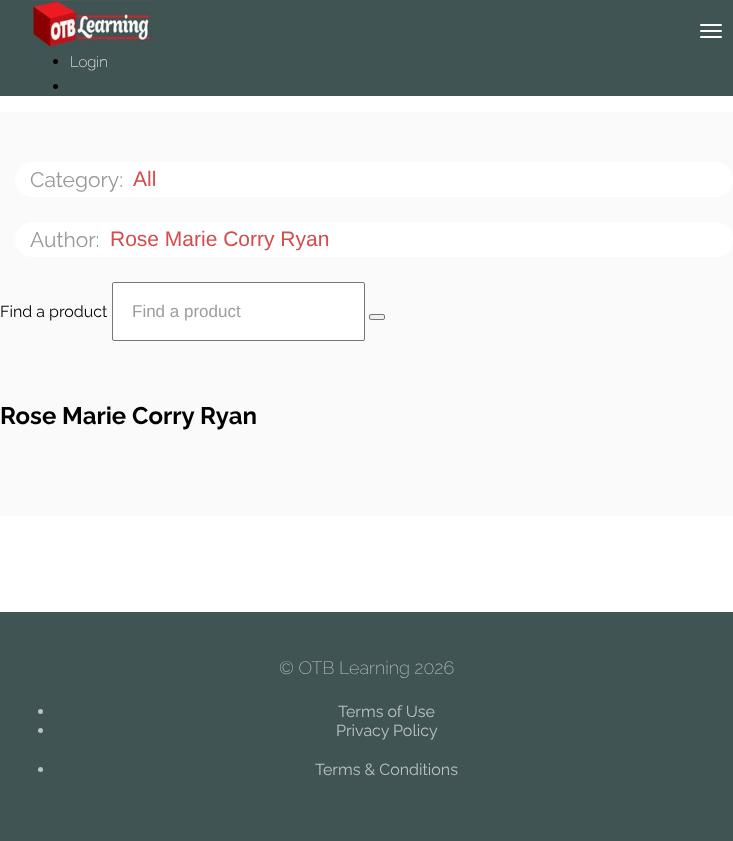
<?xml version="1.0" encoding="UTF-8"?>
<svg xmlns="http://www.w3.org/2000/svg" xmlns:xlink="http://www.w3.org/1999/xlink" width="733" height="841">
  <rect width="100%" height="100%" fill="#ffffff" />
  <rect width="733" height="96" fill="#405453" />
  <image x="30" y="0" width="122" height="48" xlink:href="image1.png" />
  <rect x="700" y="24" width="22" height="2" rx="1" fill="#ffffff" />
  <rect x="700" y="30" width="22" height="2" rx="1" fill="#ffffff" />
  <rect x="700" y="36" width="22" height="2" rx="1" fill="#ffffff" />
  <circle cx="55.5" cy="61.5" r="2.5" fill="#000000" />
  <circle cx="55.5" cy="86.5" r="2.5" fill="#000000" />
  <rect y="112" width="733" height="404" fill="#fafafa" />
  <rect x="15" y="162" width="718" height="35" rx="17.5" fill="#ffffff" />
  <rect x="15" y="222" width="718" height="35" rx="17.5" fill="#ffffff" />
  <rect x="112.5" y="282.5" width="252" height="58" rx="1.5" fill="#ffffff" stroke="#767676" />
  <rect x="369.5" y="314.5" width="15" height="5" rx="1.5" fill="#efefef" stroke="#767676" />
  <rect y="612" width="733" height="229" fill="#405453" />
  <circle cx="40.5" cy="711.5" r="2.5" fill="#bac1c7" />
  <circle cx="40.5" cy="730.5" r="2.5" fill="#bac1c7" />
  <circle cx="40.5" cy="769.5" r="2.5" fill="#bac1c7" />
  <text x="70" y="67" style="font-family: Raleway; font-size: 15px; font-weight: 200; fill: #ffffff">Login</text>
  <text x="30" y="187" style="font-family: Raleway; font-size: 21px; fill: #989898">Category:</text>
  <text x="133" y="186" style="font-family: Liberation Sans; font-size: 21px; fill: #d44c4c">All</text>
  <text x="30" y="247" style="font-family: Raleway; font-size: 21px; fill: #989898">Author:</text>
  <text x="110" y="246" style="font-family: Liberation Sans; font-size: 21px; fill: #d44c4c">Rose Marie Corry Ryan</text>
  <text x="0" y="317" style="font-family: Raleway; font-size: 16px; fill: #000000">Find a product</text>
  <text x="132" y="317" style="font-family: Liberation Sans; font-size: 17px; fill: #9e9e9e">Find a product</text>
  <text x="0" y="424" style="font-family: Raleway; font-size: 24px; font-weight: bold; fill: #000000">Rose Marie Corry Ryan</text>
  <text x="279" y="674" style="font-family: Raleway; font-size: 18px; font-weight: 200; fill: #bac1c7">© OTB Learning 2026</text>
  <text x="338" y="717" style="font-family: Raleway; font-size: 16px; fill: #bac1c7">Terms of Use</text>
  <text x="336" y="736" style="font-family: Raleway; font-size: 16px; fill: #bac1c7">Privacy Policy</text>
  <text x="315" y="775" style="font-family: Raleway; font-size: 16px; fill: #bac1c7">Terms &amp; Conditions</text>
</svg>
